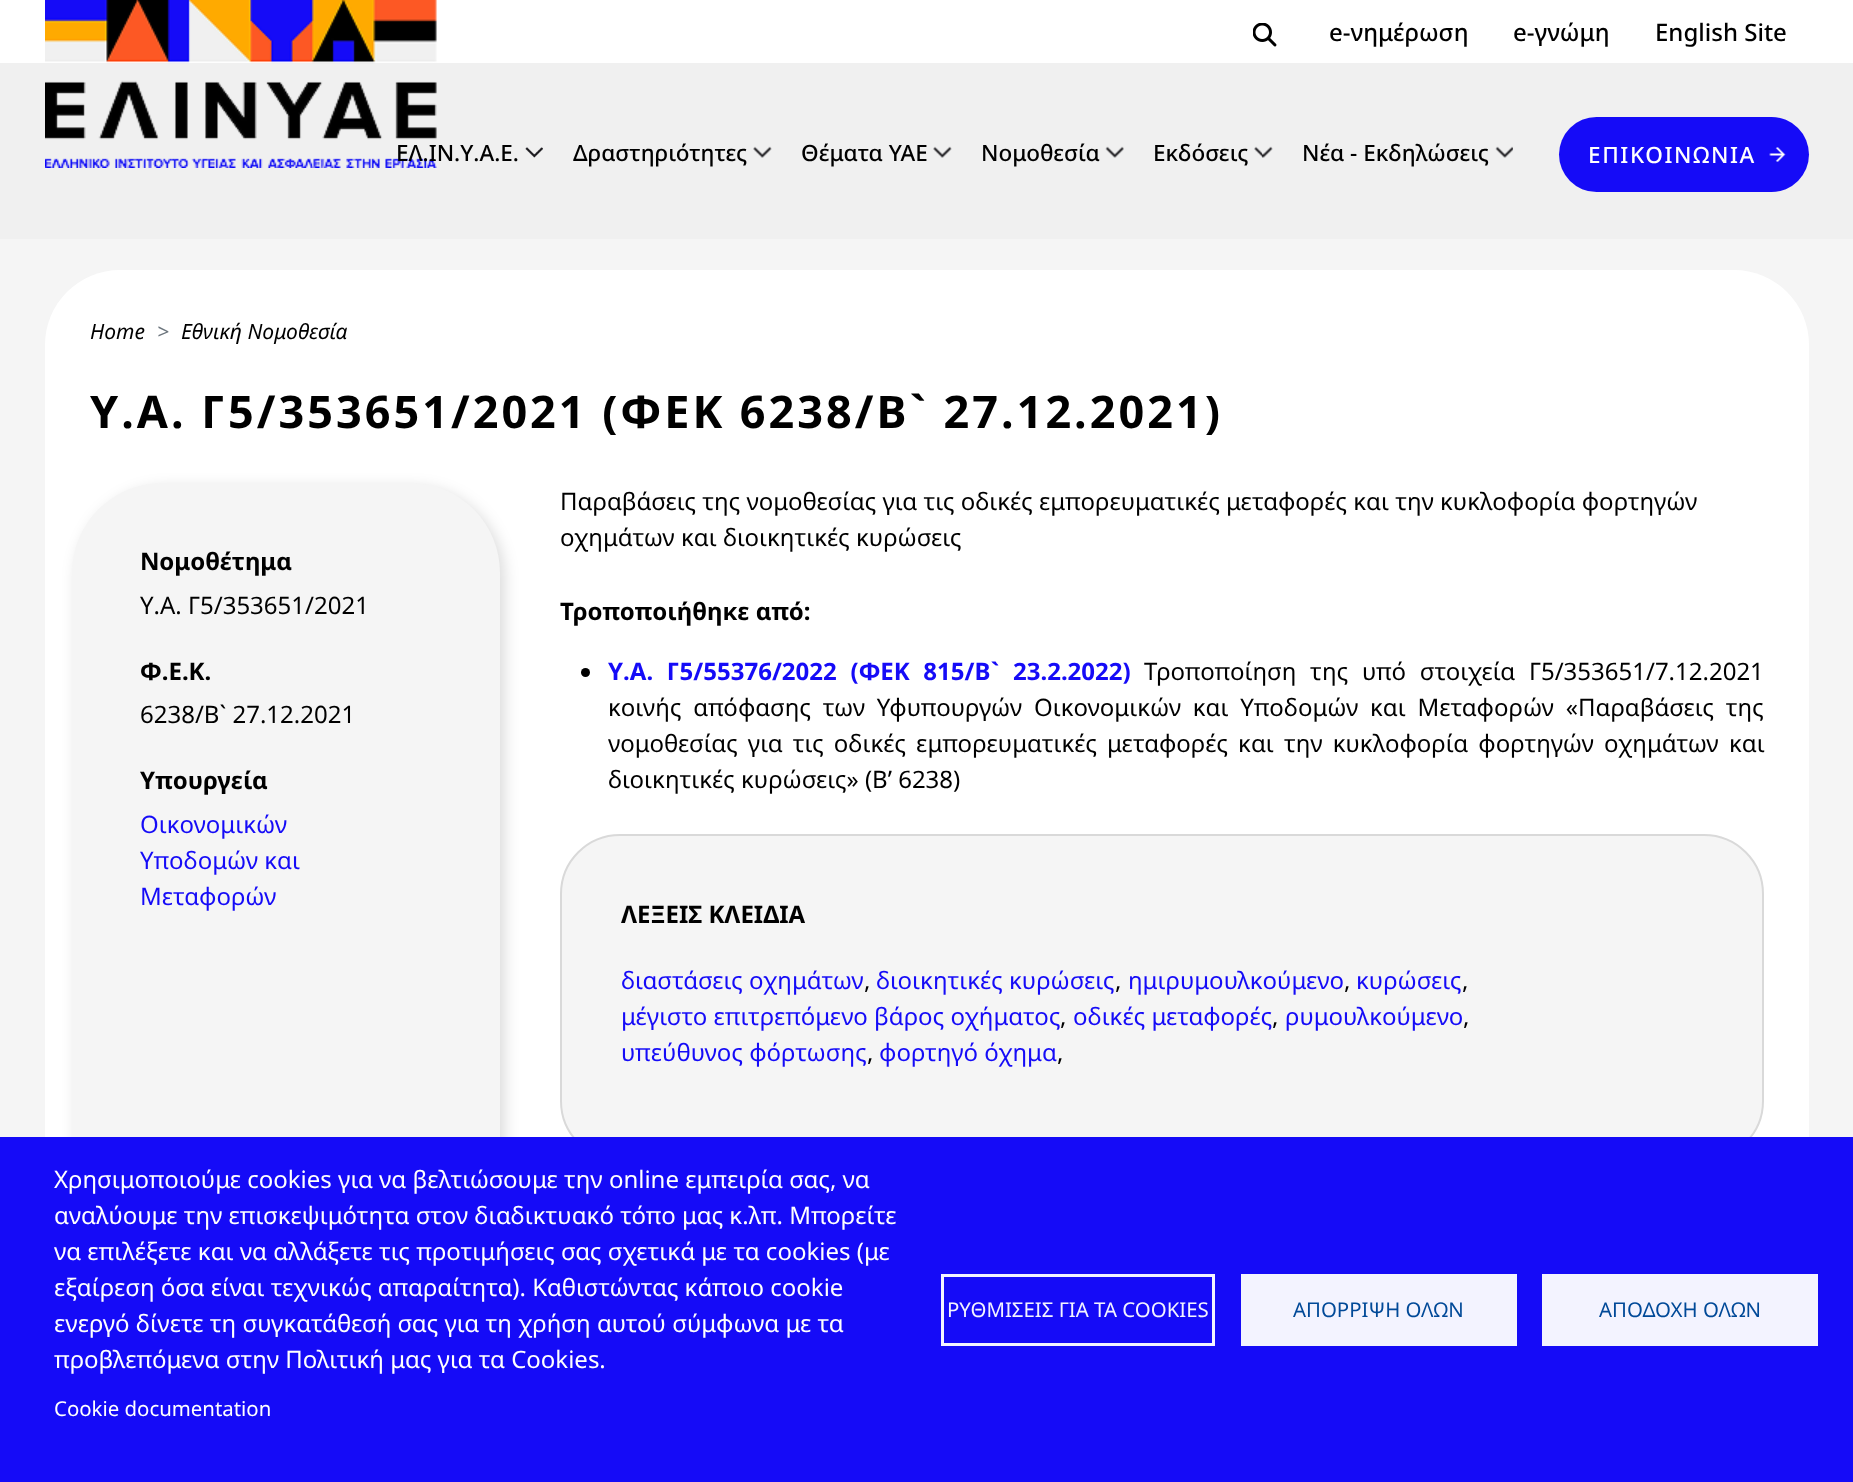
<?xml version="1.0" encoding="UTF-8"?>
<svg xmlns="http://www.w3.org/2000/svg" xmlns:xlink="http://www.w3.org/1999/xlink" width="1853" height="1482">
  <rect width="100%" height="100%" fill="#f5f5f5" />
  <rect y="63" width="1853" height="176" fill="#f0f0f0" />
  <rect width="1853" height="63" fill="#ffffff" />
  <image x="1253" y="23" width="24" height="24" xlink:href="image1.png" />
  <image x="45" y="0" width="392" height="168" xlink:href="image2.png" />
  <image x="525" y="147" width="18" height="11" xlink:href="image3.png" />
  <image x="753" y="146" width="19" height="12" xlink:href="image4.png" />
  <image x="933" y="146" width="19" height="12" xlink:href="image4.png" />
  <image x="1105" y="146" width="19" height="12" xlink:href="image5.png" />
  <image x="1254" y="146" width="19" height="12" xlink:href="image6.png" />
  <image x="1495" y="146" width="18" height="12" xlink:href="image7.png" />
  <rect x="1559" y="117" width="250" height="75" rx="37.5" fill="#150bf7" />
  <image x="1769" y="147" width="17" height="15" xlink:href="image8.png" />
  <rect x="45" y="270" width="1764" height="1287" rx="75" fill="#ffffff" />
  <rect x="77" y="488" width="427" height="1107" rx="90" fill="#000000" fill-opacity="0.15" filter="blur(7.5px)" />
  <rect x="72" y="483" width="428" height="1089" rx="90" fill="#f5f5f5" />
  <circle cx="585.5" cy="672.5" r="4.5" fill="#000000" />
  <rect x="561" y="835" width="1202" height="325" rx="59" fill="#f5f5f5" stroke="#d9d9d9" stroke-width="2" />
  <rect y="1137" width="1853" height="345" fill="#150bf7" />
  <rect x="942.5" y="1275.5" width="271" height="69" fill="none" stroke="#f3f3ff" stroke-width="3" />
  <rect x="1241" y="1274" width="276" height="72" fill="#f3f3ff" />
  <rect x="1542" y="1274" width="276" height="72" fill="#f3f3ff" />
  <text x="1329" y="41" style="font-family: Noto Sans; font-size: 24px; font-weight: 500; fill: #000000">e-νημέρωση</text>
  <text x="1513" y="41" style="font-family: Noto Sans; font-size: 24px; font-weight: 500; fill: #000000">e-γνώμη</text>
  <text x="1655" y="41" style="font-family: Noto Sans; font-size: 24px; font-weight: 500; fill: #000000">English Site</text>
  <text x="396" y="161" style="font-family: Noto Sans; font-size: 22.5px; font-weight: 500; fill: #000000">ΕΛ.ΙΝ.Υ.Α.Ε.</text>
  <text x="573" y="161" style="font-family: Noto Sans; font-size: 22.5px; font-weight: 500; fill: #000000">Δραστηριότητες</text>
  <text x="801" y="161" style="font-family: Noto Sans; font-size: 22.5px; font-weight: 500; fill: #000000">Θέματα ΥΑΕ</text>
  <text x="981" y="161" style="font-family: Noto Sans; font-size: 22.5px; font-weight: 500; fill: #000000">Νομοθεσία</text>
  <text x="1153" y="161" style="font-family: Noto Sans; font-size: 22.5px; font-weight: 500; fill: #000000">Εκδόσεις</text>
  <text x="1302" y="161" style="font-family: Noto Sans; font-size: 22.5px; font-weight: 500; fill: #000000">Νέα - Εκδηλώσεις</text>
  <text x="1588" y="163" style="font-family: Noto Sans; font-size: 22.5px; font-weight: 500; letter-spacing: 1.6px; fill: #ffffff">ΕΠΙΚΟΙΝΩΝΙΑ</text>
  <text x="90" y="339" style="font-family: Noto Sans; font-size: 21px; font-style: italic; fill: #000000">Home</text>
  <text x="157" y="339" style="font-family: Noto Sans; font-size: 21px; font-style: italic; fill: #6c757d">&gt;</text>
  <text x="181" y="339" style="font-family: Noto Sans; font-size: 21px; font-style: italic; fill: #000000">Εθνική Νομοθεσία</text>
  <text x="90" y="428" style="font-family: Noto Sans; font-size: 45px; font-weight: bold; letter-spacing: 3px; fill: #000000">Υ.Α. Γ5/353651/2021 (ΦΕΚ 6238/Β` 27.12.2021)</text>
  <text x="140" y="570" style="font-family: Noto Sans; font-size: 24px; font-weight: bold; fill: #000000">Νομοθέτημα</text>
  <text x="140" y="614" style="font-family: Noto Sans; font-size: 24px; fill: #000000">Υ.Α. Γ5/353651/2021</text>
  <text x="140" y="680" style="font-family: Noto Sans; font-size: 24px; font-weight: bold; fill: #000000">Φ.Ε.Κ.</text>
  <text x="140" y="723" style="font-family: Noto Sans; font-size: 24px; fill: #000000">6238/Β` 27.12.2021</text>
  <text x="140" y="789" style="font-family: Noto Sans; font-size: 24px; font-weight: bold; fill: #000000">Υπουργεία</text>
  <text x="140" y="833" style="font-family: Noto Sans; font-size: 24px; fill: #150bf7">Οικονομικών</text>
  <text x="140" y="869" style="font-family: Noto Sans; font-size: 24px; fill: #150bf7">Υποδομών και</text>
  <text x="140" y="905" style="font-family: Noto Sans; font-size: 24px; fill: #150bf7">Μεταφορών</text>
  <text x="560" y="510" style="font-family: Noto Sans; font-size: 24px; fill: #000000">Παραβάσεις της νομοθεσίας για τις οδικές εμπορευματικές μεταφορές και την κυκλοφορία φορτηγών</text>
  <text x="560" y="546" style="font-family: Noto Sans; font-size: 24px; fill: #000000">οχημάτων και διοικητικές κυρώσεις</text>
  <text x="560" y="620" style="font-family: Noto Sans; font-size: 24px; font-weight: bold; fill: #000000">Τροποποιήθηκε από:</text>
  <text x="608" y="680" word-spacing="7.5" style="font-family: Noto Sans; font-size: 24px; font-weight: bold; fill: #150bf7">Υ.Α. Γ5/55376/2022 (ΦΕΚ 815/Β` 23.2.2022)</text>
  <text x="1144" y="680" word-spacing="7.5" style="font-family: Noto Sans; font-size: 24px; fill: #000000">Τροποποίηση της υπό στοιχεία Γ5/353651/7.12.2021</text>
  <text x="608" y="716" word-spacing="5.5" style="font-family: Noto Sans; font-size: 24px; fill: #000000">κοινής απόφασης των Υφυπουργών Οικονομικών και Υποδομών και Μεταφορών «Παραβάσεις της</text>
  <text x="608" y="752" word-spacing="3.9" style="font-family: Noto Sans; font-size: 24px; fill: #000000">νομοθεσίας για τις οδικές εμπορευματικές μεταφορές και την κυκλοφορία φορτηγών οχημάτων και</text>
  <text x="608" y="788" style="font-family: Noto Sans; font-size: 24px; fill: #000000">διοικητικές κυρώσεις» (Β’ 6238)</text>
  <text x="621" y="923" style="font-family: Noto Sans; font-size: 24px; font-weight: bold; fill: #000000">ΛΕΞΕΙΣ KΛΕΙΔΙΑ</text>
  <text x="621" y="989" style="font-family: Noto Sans; font-size: 24px; fill: #150bf7">διαστάσεις οχημάτων</text>
  <text x="864" y="989" style="font-family: Noto Sans; font-size: 24px; fill: #000000">,</text>
  <text x="876" y="989" style="font-family: Noto Sans; font-size: 24px; fill: #150bf7">διοικητικές κυρώσεις</text>
  <text x="1115" y="989" style="font-family: Noto Sans; font-size: 24px; fill: #000000">,</text>
  <text x="1128" y="989" style="font-family: Noto Sans; font-size: 24px; fill: #150bf7">ημιρυμουλκούμενο</text>
  <text x="1344" y="989" style="font-family: Noto Sans; font-size: 24px; fill: #000000">,</text>
  <text x="1356" y="989" style="font-family: Noto Sans; font-size: 24px; fill: #150bf7">κυρώσεις</text>
  <text x="1462" y="989" style="font-family: Noto Sans; font-size: 24px; fill: #000000">,</text>
  <text x="621" y="1025" style="font-family: Noto Sans; font-size: 24px; fill: #150bf7">μέγιστο επιτρεπόμενο βάρος οχήματος</text>
  <text x="1060" y="1025" style="font-family: Noto Sans; font-size: 24px; fill: #000000">,</text>
  <text x="1073" y="1025" style="font-family: Noto Sans; font-size: 24px; fill: #150bf7">οδικές μεταφορές</text>
  <text x="1272" y="1025" style="font-family: Noto Sans; font-size: 24px; fill: #000000">,</text>
  <text x="1285" y="1025" style="font-family: Noto Sans; font-size: 24px; fill: #150bf7">ρυμουλκούμενο</text>
  <text x="1463" y="1025" style="font-family: Noto Sans; font-size: 24px; fill: #000000">,</text>
  <text x="621" y="1061" style="font-family: Noto Sans; font-size: 24px; fill: #150bf7">υπεύθυνος φόρτωσης</text>
  <text x="867" y="1061" style="font-family: Noto Sans; font-size: 24px; fill: #000000">,</text>
  <text x="879" y="1061" style="font-family: Noto Sans; font-size: 24px; fill: #150bf7">φορτηγό όχημα</text>
  <text x="1057" y="1061" style="font-family: Noto Sans; font-size: 24px; fill: #000000">,</text>
  <text x="54" y="1188" style="font-family: Noto Sans; font-size: 24px; fill: #ffffff">Χρησιμοποιούμε cookies για να βελτιώσουμε την online εμπειρία σας, να</text>
  <text x="54" y="1224" style="font-family: Noto Sans; font-size: 24px; fill: #ffffff">αναλύουμε την επισκεψιμότητα στον διαδικτυακό τόπο μας κ.λπ. Μπορείτε</text>
  <text x="54" y="1260" style="font-family: Noto Sans; font-size: 24px; fill: #ffffff">να επιλέξετε και να αλλάξετε τις προτιμήσεις σας σχετικά με τα cookies (με</text>
  <text x="54" y="1296" style="font-family: Noto Sans; font-size: 24px; fill: #ffffff">εξαίρεση όσα είναι τεχνικώς απαραίτητα). Καθιστώντας κάποιο cookie</text>
  <text x="54" y="1332" style="font-family: Noto Sans; font-size: 24px; fill: #ffffff">ενεργό δίνετε τη συγκατάθεσή σας για τη χρήση αυτού σύμφωνα με τα</text>
  <text x="54" y="1368" style="font-family: Noto Sans; font-size: 24px; fill: #ffffff">προβλεπόμενα στην Πολιτική μας για τα Cookies.</text>
  <text x="54" y="1416" style="font-family: Noto Sans; font-size: 20.4px; fill: #ffffff">Cookie documentation</text>
  <text x="947" y="1317" style="font-family: Noto Sans; font-size: 20.4px; fill: #f3f3ff">ΡΥΘΜΙΣΕΙΣ ΓΙΑ ΤΑ COOKIES</text>
  <text x="1293" y="1317" style="font-family: Noto Sans; font-size: 20.4px; fill: #014998">ΑΠΟΡΡΙΨΗ ΟΛΩΝ</text>
  <text x="1599" y="1317" style="font-family: Noto Sans; font-size: 20.4px; fill: #014998">ΑΠΟΔΟΧΗ ΟΛΩΝ</text>
</svg>
